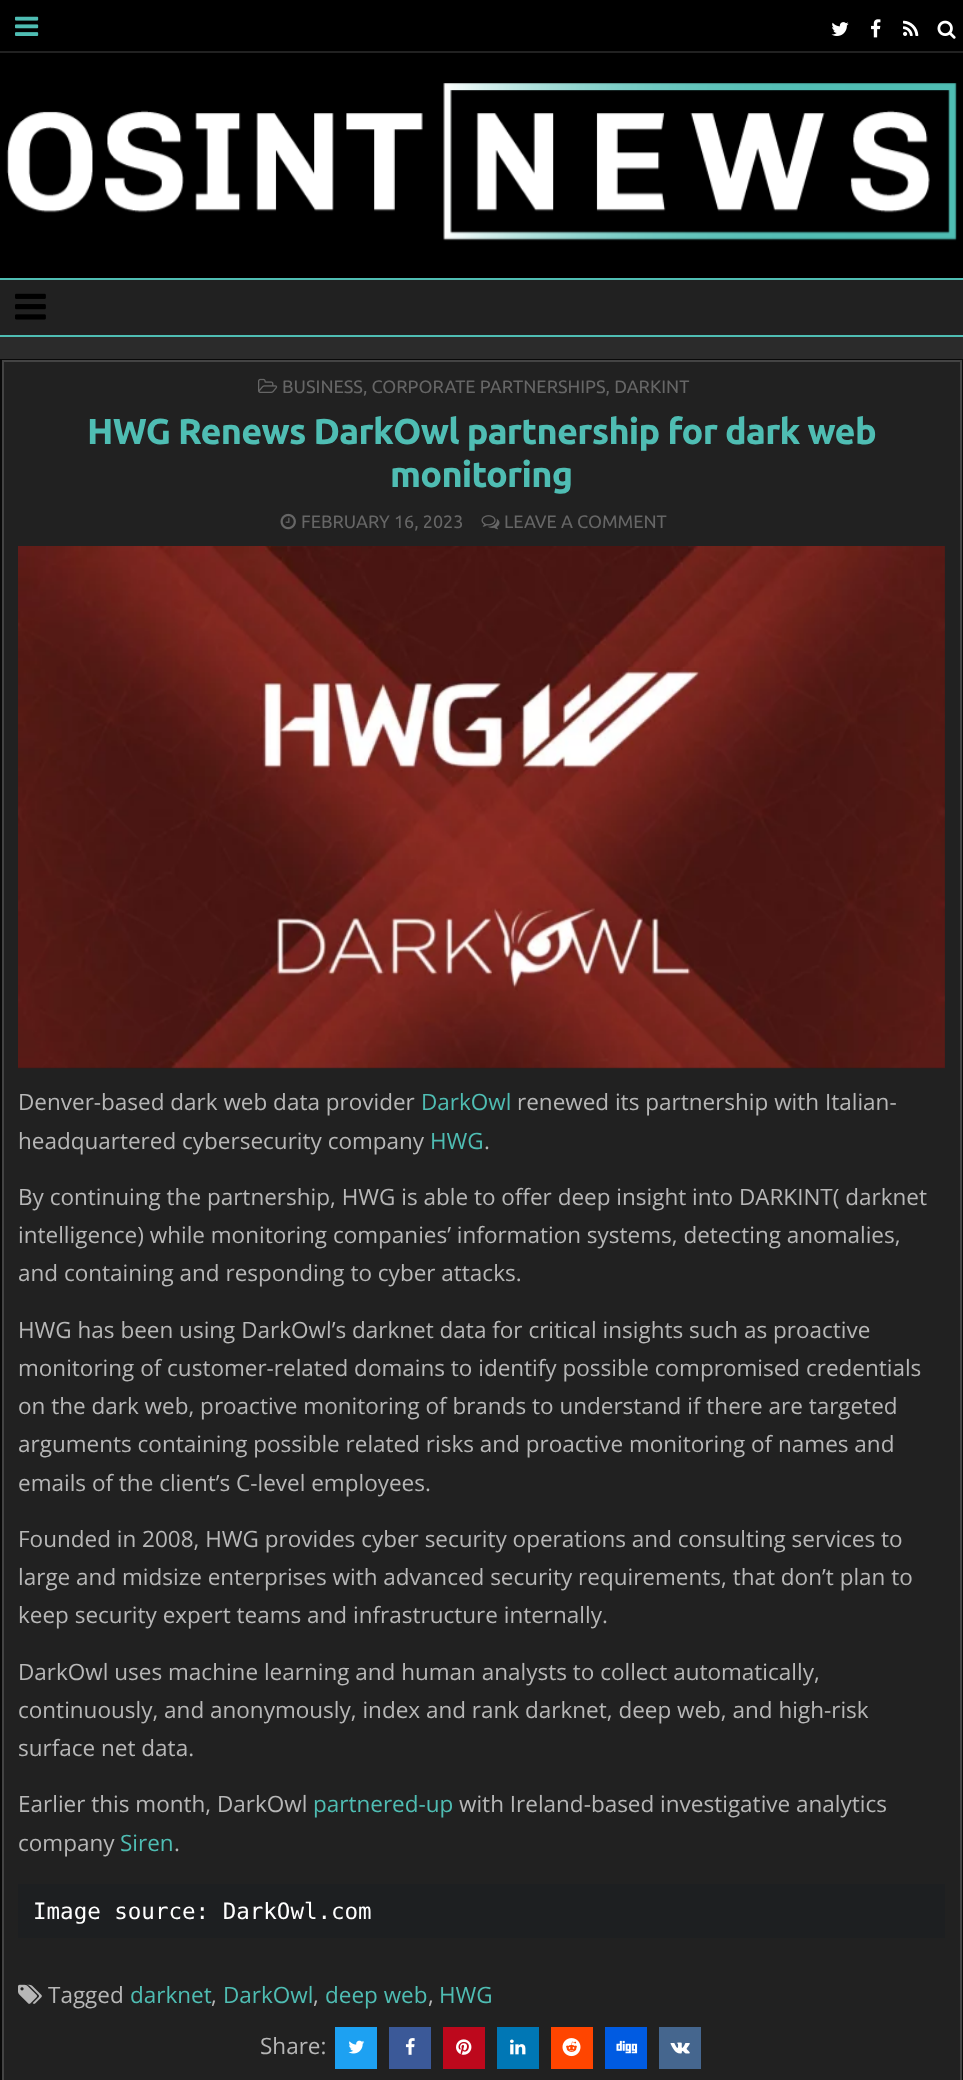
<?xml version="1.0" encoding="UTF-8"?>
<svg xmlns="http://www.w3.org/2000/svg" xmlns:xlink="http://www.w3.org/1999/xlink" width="963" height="2080">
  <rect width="100%" height="100%" fill="#2b2b2b" />
  <rect width="963" height="51" fill="#000000" />
  <rect y="51" width="963" height="2" fill="#212121" />
  <image x="15" y="16" width="24" height="20" xlink:href="image1.png" />
  <image x="831" y="22" width="18" height="14" xlink:href="image2.png" />
  <image x="871" y="19" width="10" height="19" xlink:href="image3.png" />
  <image x="903" y="20" width="16" height="16" xlink:href="image4.png" />
  <image x="937" y="20" width="19" height="19" xlink:href="image5.png" />
  <rect y="53" width="963" height="225" fill="#000000" />
  <image x="6" y="83" width="951" height="158" xlink:href="image6.png" />
  <rect y="280" width="963" height="55" fill="#212121" />
  <rect y="278" width="963" height="2" fill="#4fbdb3" />
  <rect y="335" width="963" height="2" fill="#4fbdb3" />
  <image x="15" y="293" width="31" height="27" xlink:href="image7.png" />
  <rect x="4" y="362" width="956" height="1718" fill="#212121" />
  <rect x="1" y="360" width="961" height="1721" fill="none" stroke="#090909" stroke-width="2" />
  <rect x="3" y="361" width="958" height="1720" fill="none" stroke="#444444" stroke-width="2" />
  <image x="258" y="378" width="20" height="15" xlink:href="image8.png" />
  <image x="280" y="513" width="16" height="17" xlink:href="image9.png" />
  <image x="481" y="515" width="19" height="15" xlink:href="image10.png" />
  <image x="18" y="546" width="927" height="523" xlink:href="image11.png" />
  <rect x="18" y="1884" width="927" height="54" fill="#1d1f21" />
  <image x="18" y="1984" width="24" height="20" xlink:href="image12.png" />
  <rect x="335" y="2027" width="42" height="42" fill="#1da1f2" />
  <image x="348" y="2040" width="17" height="14" xlink:href="image13.png" />
  <rect x="389" y="2027" width="42" height="42" fill="#3b5998" />
  <image x="405" y="2038" width="10" height="17" xlink:href="image14.png" />
  <rect x="443" y="2027" width="42" height="42" fill="#bd081c" />
  <image x="456" y="2039" width="16" height="16" xlink:href="image15.png" />
  <rect x="497" y="2027" width="42" height="42" fill="#0077b5" />
  <image x="510" y="2039" width="16" height="16" xlink:href="image16.png" />
  <rect x="551" y="2027" width="42" height="42" fill="#ff4500" />
  <image x="562" y="2038" width="19" height="19" xlink:href="image17.png" />
  <rect x="605" y="2027" width="42" height="42" fill="#005be2" />
  <image x="616" y="2040" width="22" height="14" xlink:href="image18.png" />
  <rect x="659" y="2027" width="42" height="42" fill="#45668e" />
  <image x="670" y="2042" width="20" height="12" xlink:href="image19.png" />
  <text x="282" y="393" style="font-family: Ubuntu; font-size: 18px; fill: #666666">BUSINESS, CORPORATE PARTNERSHIPS, DARKINT</text>
  <text x="87" y="444" style="font-family: Ubuntu; font-size: 36px; font-weight: bold; letter-spacing: -0.75px; fill: #4fbdb3">HWG Renews DarkOwl partnership for dark web</text>
  <text x="390" y="487" style="font-family: Ubuntu; font-size: 36px; font-weight: bold; letter-spacing: -0.75px; fill: #4fbdb3">monitoring</text>
  <text x="301" y="528" style="font-family: Ubuntu; font-size: 18px; fill: #666666">FEBRUARY 16, 2023</text>
  <text x="504" y="528" style="font-family: Ubuntu; font-size: 18px; fill: #666666">LEAVE A COMMENT</text>
  <text x="18" y="1110" style="font-family: Open Sans; font-size: 22.5px; fill: #b7b7b7">Denver-based dark web data provider</text>
  <text x="421" y="1110" style="font-family: Open Sans; font-size: 22.5px; fill: #4fbdb3">DarkOwl</text>
  <text x="517" y="1110" style="font-family: Open Sans; font-size: 22.5px; fill: #b7b7b7">renewed its partnership with Italian-</text>
  <text x="18" y="1149" style="font-family: Open Sans; font-size: 22.5px; fill: #b7b7b7">headquartered cybersecurity company</text>
  <text x="430" y="1149" style="font-family: Open Sans; font-size: 22.5px; fill: #4fbdb3">HWG</text>
  <text x="484" y="1149" style="font-family: Open Sans; font-size: 22.5px; fill: #b7b7b7">.</text>
  <text x="18" y="1205" style="font-family: Open Sans; font-size: 22.5px; fill: #b7b7b7">By continuing the partnership, HWG is able to offer deep insight into DARKINT( darknet</text>
  <text x="18" y="1243" style="font-family: Open Sans; font-size: 22.5px; fill: #b7b7b7">intelligence) while monitoring companies’ information systems, detecting anomalies,</text>
  <text x="18" y="1281" style="font-family: Open Sans; font-size: 22.5px; fill: #b7b7b7">and containing and responding to cyber attacks.</text>
  <text x="18" y="1338" style="font-family: Open Sans; font-size: 22.5px; fill: #b7b7b7">HWG has been using DarkOwl’s darknet data for critical insights such as proactive</text>
  <text x="18" y="1376" style="font-family: Open Sans; font-size: 22.5px; fill: #b7b7b7">monitoring of customer-related domains to identify possible compromised credentials</text>
  <text x="18" y="1414" style="font-family: Open Sans; font-size: 22.5px; fill: #b7b7b7">on the dark web, proactive monitoring of brands to understand if there are targeted</text>
  <text x="18" y="1452" style="font-family: Open Sans; font-size: 22.5px; fill: #b7b7b7">arguments containing possible related risks and proactive monitoring of names and</text>
  <text x="18" y="1491" style="font-family: Open Sans; font-size: 22.5px; fill: #b7b7b7">emails of the client’s C-level employees.</text>
  <text x="18" y="1547" style="font-family: Open Sans; font-size: 22.5px; fill: #b7b7b7">Founded in 2008, HWG provides cyber security operations and consulting services to</text>
  <text x="18" y="1585" style="font-family: Open Sans; font-size: 22.5px; fill: #b7b7b7">large and midsize enterprises with advanced security requirements, that don’t plan to</text>
  <text x="18" y="1623" style="font-family: Open Sans; font-size: 22.5px; fill: #b7b7b7">keep security expert teams and infrastructure internally.</text>
  <text x="18" y="1680" style="font-family: Open Sans; font-size: 22.5px; fill: #b7b7b7">DarkOwl uses machine learning and human analysts to collect automatically,</text>
  <text x="18" y="1718" style="font-family: Open Sans; font-size: 22.5px; fill: #b7b7b7">continuously, and anonymously, index and rank darknet, deep web, and high-risk</text>
  <text x="18" y="1756" style="font-family: Open Sans; font-size: 22.5px; fill: #b7b7b7">surface net data.</text>
  <text x="18" y="1812" style="font-family: Open Sans; font-size: 22.5px; fill: #b7b7b7">Earlier this month, DarkOwl</text>
  <text x="313" y="1812" style="font-family: Open Sans; font-size: 22.5px; fill: #4fbdb3">partnered-up</text>
  <text x="459" y="1812" style="font-family: Open Sans; font-size: 22.5px; fill: #b7b7b7">with Ireland-based investigative analytics</text>
  <text x="18" y="1851" style="font-family: Open Sans; font-size: 22.5px; fill: #b7b7b7">company</text>
  <text x="120" y="1851" style="font-family: Open Sans; font-size: 22.5px; fill: #4fbdb3">Siren</text>
  <text x="174" y="1851" style="font-family: Open Sans; font-size: 22.5px; fill: #b7b7b7">.</text>
  <text x="33" y="1919" style="font-family: DejaVu Sans Mono; font-size: 22.5px; fill: #ffffff">Image source: DarkOwl.com</text>
  <text x="48" y="2003" style="font-family: Open Sans; font-size: 22.5px; fill: #b7b7b7">Tagged</text>
  <text x="130" y="2003" style="font-family: Open Sans; font-size: 22.5px; fill: #4fbdb3">darknet</text>
  <text x="211" y="2003" style="font-family: Open Sans; font-size: 22.5px; fill: #b7b7b7">,</text>
  <text x="223" y="2003" style="font-family: Open Sans; font-size: 22.5px; fill: #4fbdb3">DarkOwl</text>
  <text x="313" y="2003" style="font-family: Open Sans; font-size: 22.5px; fill: #b7b7b7">,</text>
  <text x="325" y="2003" style="font-family: Open Sans; font-size: 22.5px; fill: #4fbdb3">deep web</text>
  <text x="428" y="2003" style="font-family: Open Sans; font-size: 22.5px; fill: #b7b7b7">,</text>
  <text x="439" y="2003" style="font-family: Open Sans; font-size: 22.5px; fill: #4fbdb3">HWG</text>
  <text x="260" y="2054" style="font-family: Open Sans; font-size: 22.5px; fill: #b7b7b7">Share:</text>
</svg>
